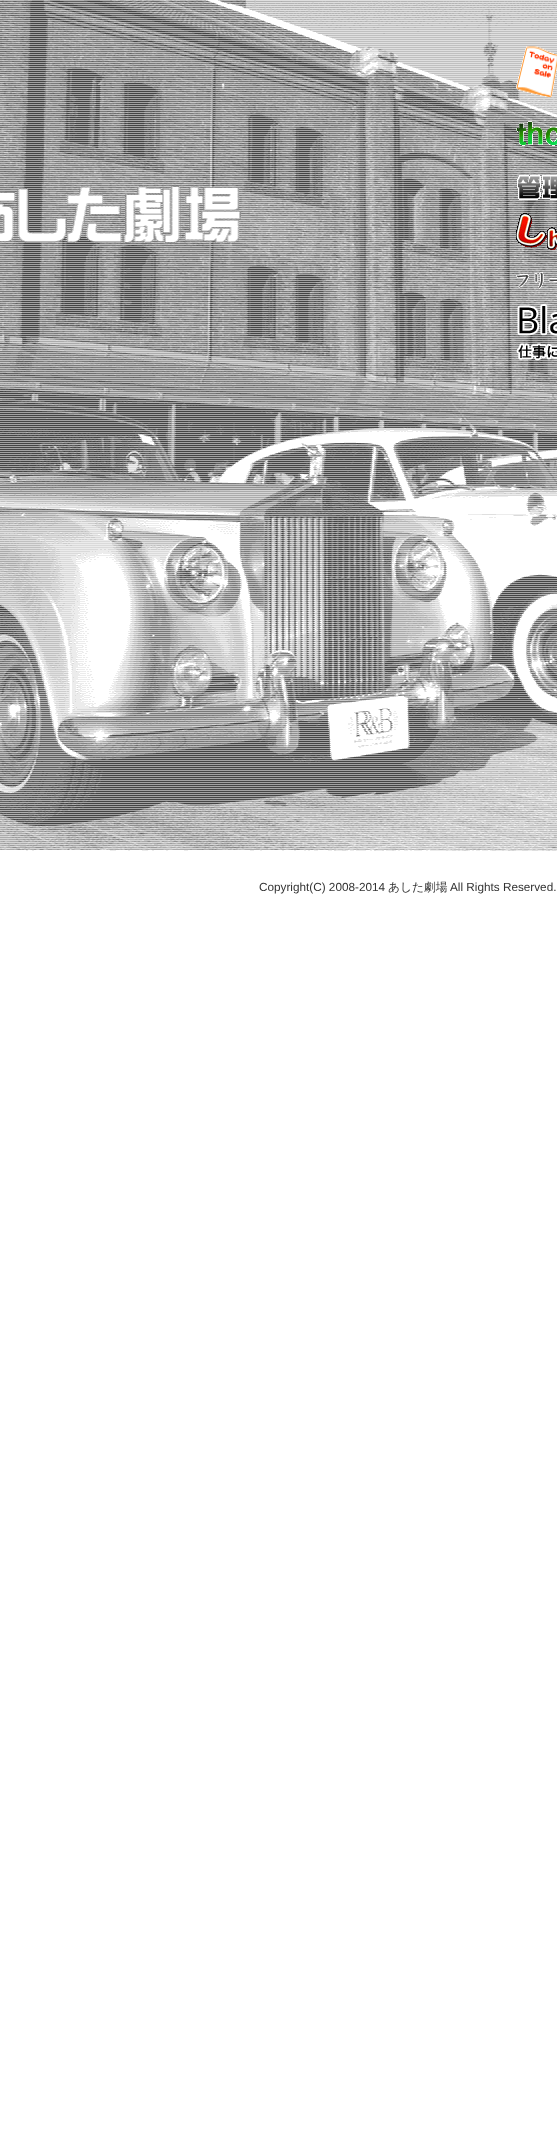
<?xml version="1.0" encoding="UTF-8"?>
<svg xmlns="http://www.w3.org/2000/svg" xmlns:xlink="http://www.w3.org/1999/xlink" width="557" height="2153">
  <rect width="100%" height="100%" fill="#ffffff" />
  <image x="0" y="0" width="557" height="851" xlink:href="image1.png" />
  <image x="516" y="46" width="41" height="52" xlink:href="image2.png" />
  <image x="516" y="121" width="41" height="25" xlink:href="image3.png" />
  <image x="517" y="175" width="40" height="25" xlink:href="image4.png" />
  <image x="516" y="213" width="41" height="37" xlink:href="image5.png" />
  <image x="515" y="272" width="42" height="17" xlink:href="image6.png" />
  <image x="516" y="304" width="41" height="57" xlink:href="image7.png" />
  <text x="259" y="891" style="font-family: Liberation Sans; font-size: 11.75px; fill: #333333">Copyright(C) 2008-2014</text>
  <text x="388" y="891" style="font-family: WenQuanYi Zen Hei; font-size: 11.75px; font-weight: 500; fill: #333333">あした劇場</text>
  <text x="450" y="891" style="font-family: Liberation Sans; font-size: 11.75px; fill: #333333">All Rights Reserved.</text>
</svg>
